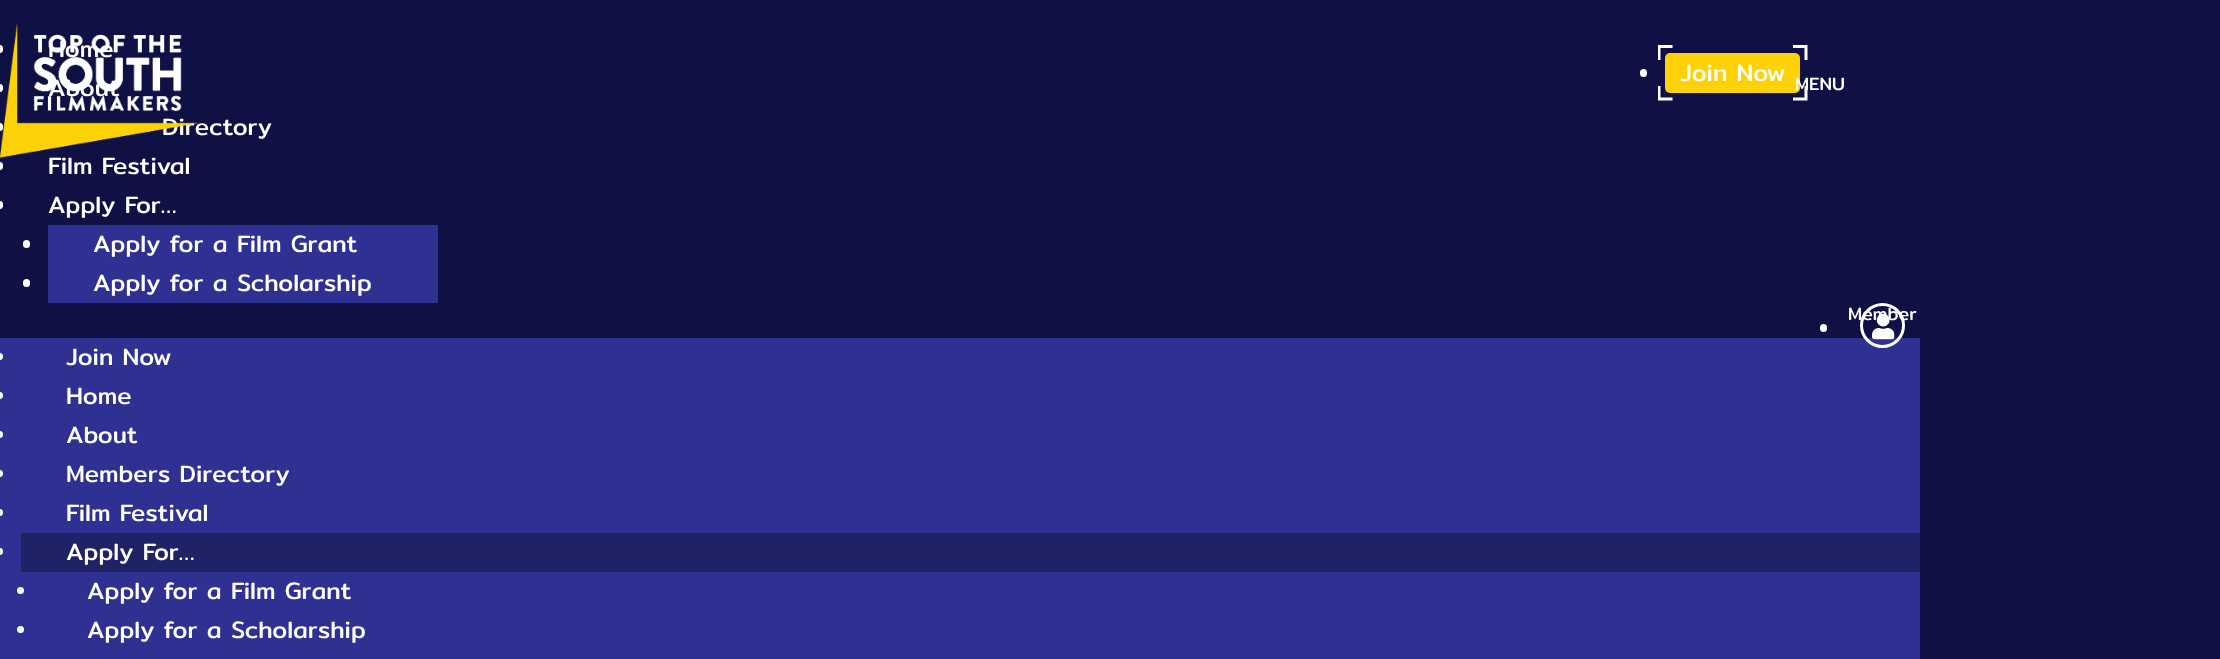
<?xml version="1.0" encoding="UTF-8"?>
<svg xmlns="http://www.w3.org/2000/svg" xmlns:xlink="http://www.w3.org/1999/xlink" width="2220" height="659">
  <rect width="100%" height="100%" fill="#0f1145" />
  <rect x="-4" y="45" width="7" height="8" rx="3.5" fill="#ffffff" />
  <rect x="1665" y="53" width="135" height="40" rx="5" fill="#fed206" />
  <rect x="1640" y="69" width="7" height="8" rx="3.5" fill="#ffffff" />
  <image x="1658" y="86" width="15" height="15" xlink:href="image2.png" />
  <image x="1793" y="86" width="15" height="15" xlink:href="image3.png" />
  <image x="1793" y="45" width="15" height="15" xlink:href="image4.png" />
  <image x="1658" y="45" width="15" height="15" xlink:href="image5.png" />
  <rect x="-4" y="84" width="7" height="8" rx="3.5" fill="#ffffff" />
  <rect x="-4" y="123" width="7" height="8" rx="3.5" fill="#ffffff" />
  <rect x="-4" y="162" width="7" height="8" rx="3.5" fill="#ffffff" />
  <rect x="-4" y="201" width="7" height="8" rx="3.5" fill="#ffffff" />
  <rect x="48" y="225" width="390" height="78" fill="#2e3192" />
  <rect x="23" y="240" width="7" height="8" rx="3.5" fill="#ffffff" />
  <rect x="23" y="279" width="7" height="8" rx="3.5" fill="#ffffff" />
  <rect y="338" width="1920" height="321" fill="#2e3192" />
  <circle cx="1882.5" cy="325.5" r="21" fill="none" stroke="#ffffff" stroke-width="3" />
  <image x="1872" y="313" width="23" height="27" xlink:href="image6.png" />
  <rect x="1820" y="324" width="7" height="8" rx="3.5" fill="#ffffff" />
  <circle cx="-0.5" cy="356.5" r="3.5" fill="#ffffff" />
  <circle cx="-0.5" cy="395.5" r="3.5" fill="#ffffff" />
  <circle cx="-0.5" cy="434.5" r="3.5" fill="#ffffff" />
  <circle cx="-0.5" cy="473.5" r="3.5" fill="#ffffff" />
  <circle cx="-0.5" cy="512.5" r="3.5" fill="#ffffff" />
  <rect x="21" y="533" width="1899" height="39" fill="#202266" />
  <circle cx="-0.5" cy="551.5" r="3.5" fill="#ffffff" />
  <circle cx="20.5" cy="590.5" r="3.5" fill="#ffffff" />
  <circle cx="20.5" cy="629.5" r="3.5" fill="#ffffff" />
  <text x="48" y="57" style="font-family: Mitr; font-size: 24px; fill: #ffffff">Home</text>
  <text x="1680" y="81" style="font-family: Mitr; font-size: 24px; fill: #ffffff">Join Now</text>
  <text x="48" y="96" style="font-family: Mitr; font-size: 24px; fill: #ffffff">About</text>
  <text x="162" y="135" style="font-family: Mitr; font-size: 24px; fill: #ffffff">Directory</text>
  <text x="48" y="174" style="font-family: Mitr; font-size: 24px; fill: #ffffff">Film Festival</text>
  <image x="0" y="23" width="198" height="135" xlink:href="image1.png" />
  <text x="48" y="213" style="font-family: Mitr; font-size: 24px; fill: #ffffff">Apply For…</text>
  <text x="93" y="252" style="font-family: Mitr; font-size: 24px; fill: #ffffff">Apply for a Film Grant</text>
  <text x="93" y="291" style="font-family: Mitr; font-size: 24px; fill: #ffffff">Apply for a Scholarship</text>
  <text x="1848" y="320" style="font-family: Mitr; font-size: 18px; fill: #ffffff">Member</text>
  <text x="1795" y="90" style="font-family: Mitr; font-size: 18px; fill: #ffffff">MENU</text>
  <text x="66" y="365" style="font-family: Mitr; font-size: 24px; fill: #ffffff">Join Now</text>
  <text x="66" y="404" style="font-family: Mitr; font-size: 24px; fill: #ffffff">Home</text>
  <text x="66" y="443" style="font-family: Mitr; font-size: 24px; fill: #ffffff">About</text>
  <text x="66" y="482" style="font-family: Mitr; font-size: 24px; fill: #ffffff">Members Directory</text>
  <text x="66" y="521" style="font-family: Mitr; font-size: 24px; fill: #ffffff">Film Festival</text>
  <text x="66" y="560" style="font-family: Mitr; font-size: 24px; fill: #ffffff">Apply For…</text>
  <text x="87" y="599" style="font-family: Mitr; font-size: 24px; fill: #ffffff">Apply for a Film Grant</text>
  <text x="87" y="638" style="font-family: Mitr; font-size: 24px; fill: #ffffff">Apply for a Scholarship</text>
</svg>
